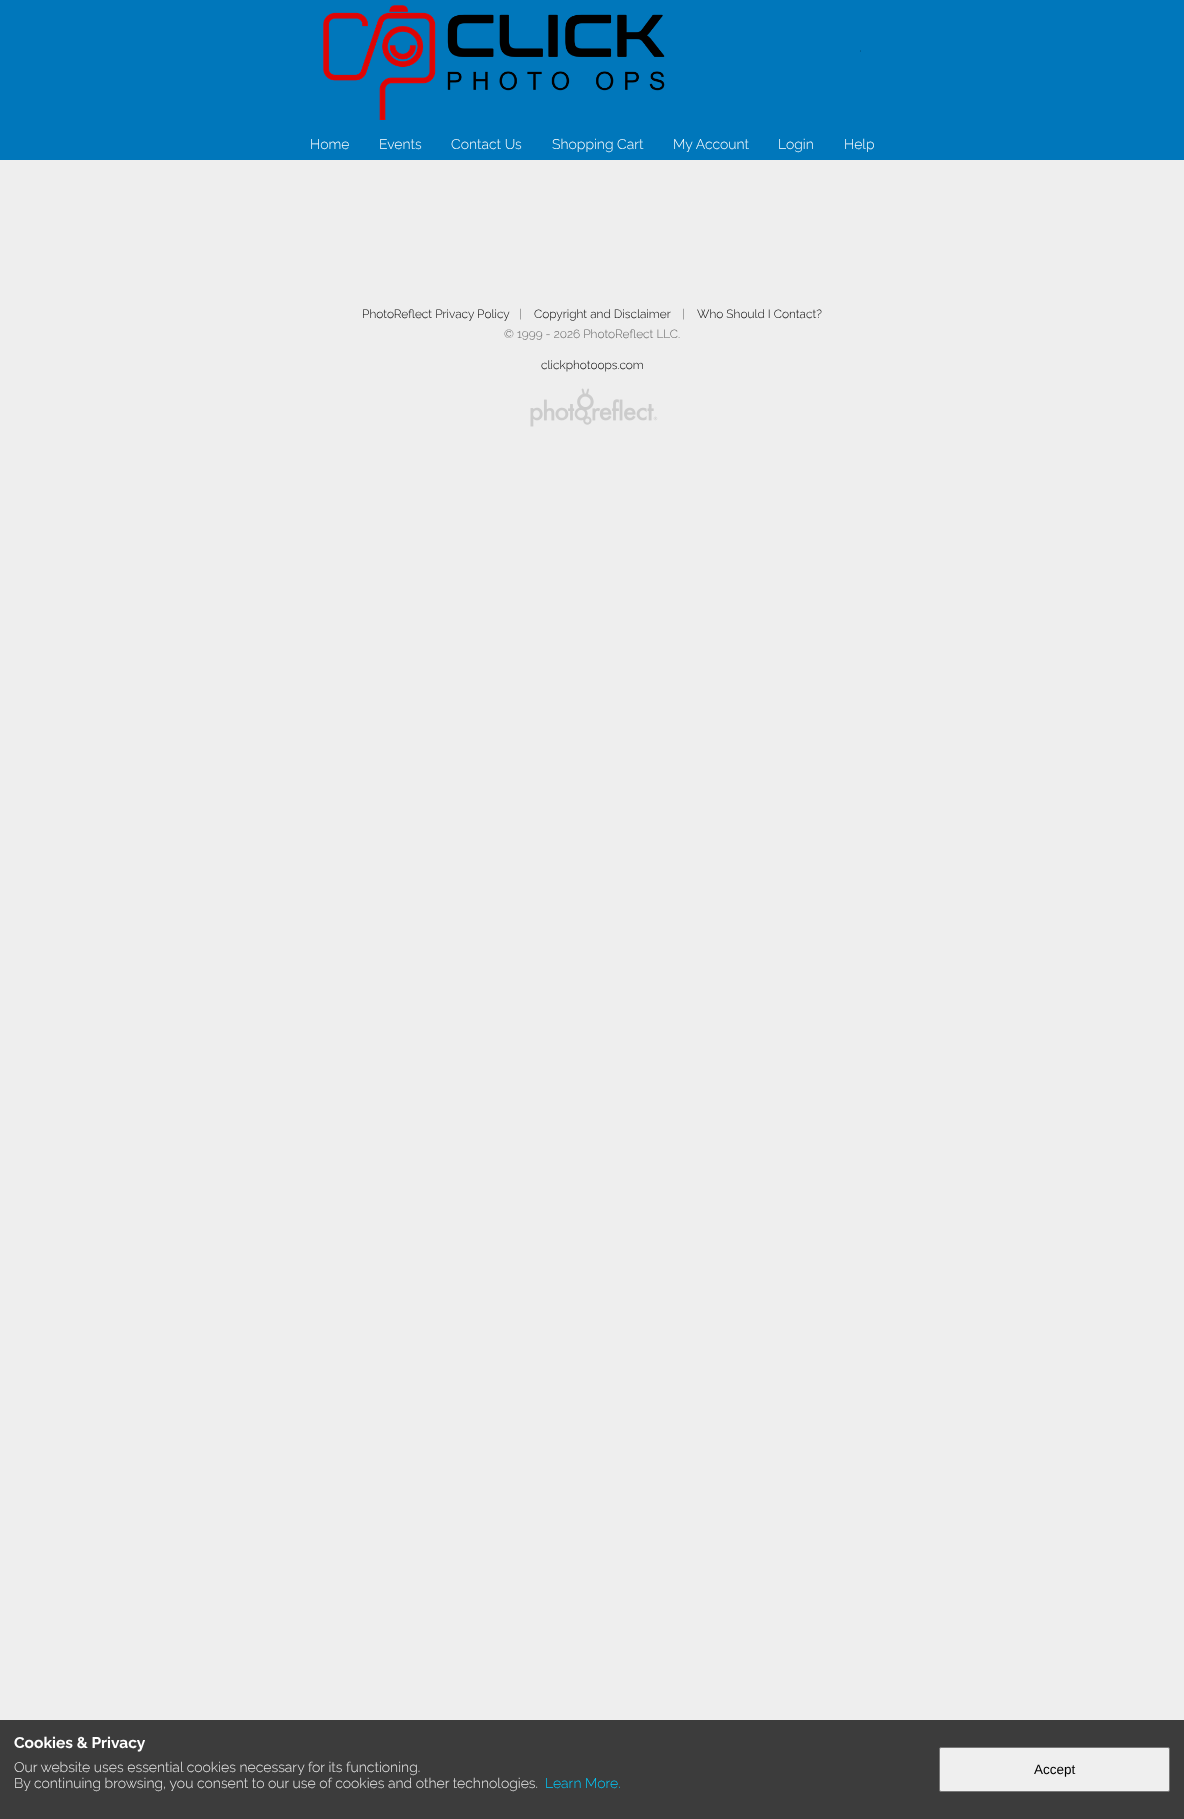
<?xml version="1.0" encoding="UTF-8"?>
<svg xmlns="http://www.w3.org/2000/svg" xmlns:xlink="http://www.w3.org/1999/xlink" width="1184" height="1819">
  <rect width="100%" height="100%" fill="#eeeeee" />
  <rect width="1184" height="160" fill="#0077bb" />
  <image x="323" y="5" width="538" height="115" xlink:href="image1.png" />
  <image x="530" y="388" width="128" height="39" xlink:href="image2.png" />
  <rect y="1720" width="1184" height="99" fill="#3c3c3c" />
  <rect x="939.5" y="1747.5" width="230" height="44" rx="1.5" fill="#efefef" stroke="#767676" />
  <text x="310" y="149" style="font-family: Raleway; font-size: 14px; font-weight: 300; fill: #ffffff">Home</text>
  <text x="379" y="149" style="font-family: Raleway; font-size: 14px; font-weight: 300; fill: #ffffff">Events</text>
  <text x="451" y="149" style="font-family: Raleway; font-size: 14px; font-weight: 300; fill: #ffffff">Contact Us</text>
  <text x="552" y="149" style="font-family: Raleway; font-size: 14px; font-weight: 300; fill: #ffffff">Shopping Cart</text>
  <text x="673" y="149" style="font-family: Raleway; font-size: 14px; font-weight: 300; fill: #ffffff">My Account</text>
  <text x="778" y="149" style="font-family: Raleway; font-size: 14px; font-weight: 300; fill: #ffffff">Login</text>
  <text x="844" y="149" style="font-family: Raleway; font-size: 14px; font-weight: 300; fill: #ffffff">Help</text>
  <text x="362" y="318" style="font-family: Raleway; font-size: 11.9px; font-weight: 300; fill: #000000">PhotoReflect Privacy Policy</text>
  <text x="519" y="318" style="font-family: Raleway; font-size: 11.9px; font-weight: 300; fill: #666666">|</text>
  <text x="534" y="318" style="font-family: Raleway; font-size: 11.9px; font-weight: 300; fill: #000000">Copyright and Disclaimer</text>
  <text x="682" y="318" style="font-family: Raleway; font-size: 11.9px; font-weight: 300; fill: #666666">|</text>
  <text x="697" y="318" style="font-family: Raleway; font-size: 11.9px; font-weight: 300; fill: #000000">Who Should I Contact?</text>
  <text x="504" y="338" style="font-family: Raleway; font-size: 11.9px; font-weight: 300; fill: #666666">© 1999 - 2026 PhotoReflect LLC.</text>
  <text x="541" y="369" style="font-family: Raleway; font-size: 11.9px; font-weight: 300; fill: #000000">clickphotoops.com</text>
  <text x="14" y="1748" style="font-family: Raleway; font-size: 15.5px; font-weight: bold; fill: #ffffff">Cookies &amp; Privacy</text>
  <text x="14" y="1772" style="font-family: Raleway; font-size: 14px; font-weight: 300; fill: #eeeeee">Our website uses essential cookies necessary for its functioning.</text>
  <text x="14" y="1788" style="font-family: Raleway; font-size: 14px; font-weight: 300; fill: #eeeeee">By continuing browsing, you consent to our use of cookies and other technologies.</text>
  <text x="545" y="1788" style="font-family: Raleway; font-size: 14px; font-weight: 300; fill: #00ccff">Learn More.</text>
  <text x="1034" y="1774" style="font-family: Liberation Sans; font-size: 13.5px; fill: #000000">Accept</text>
</svg>
